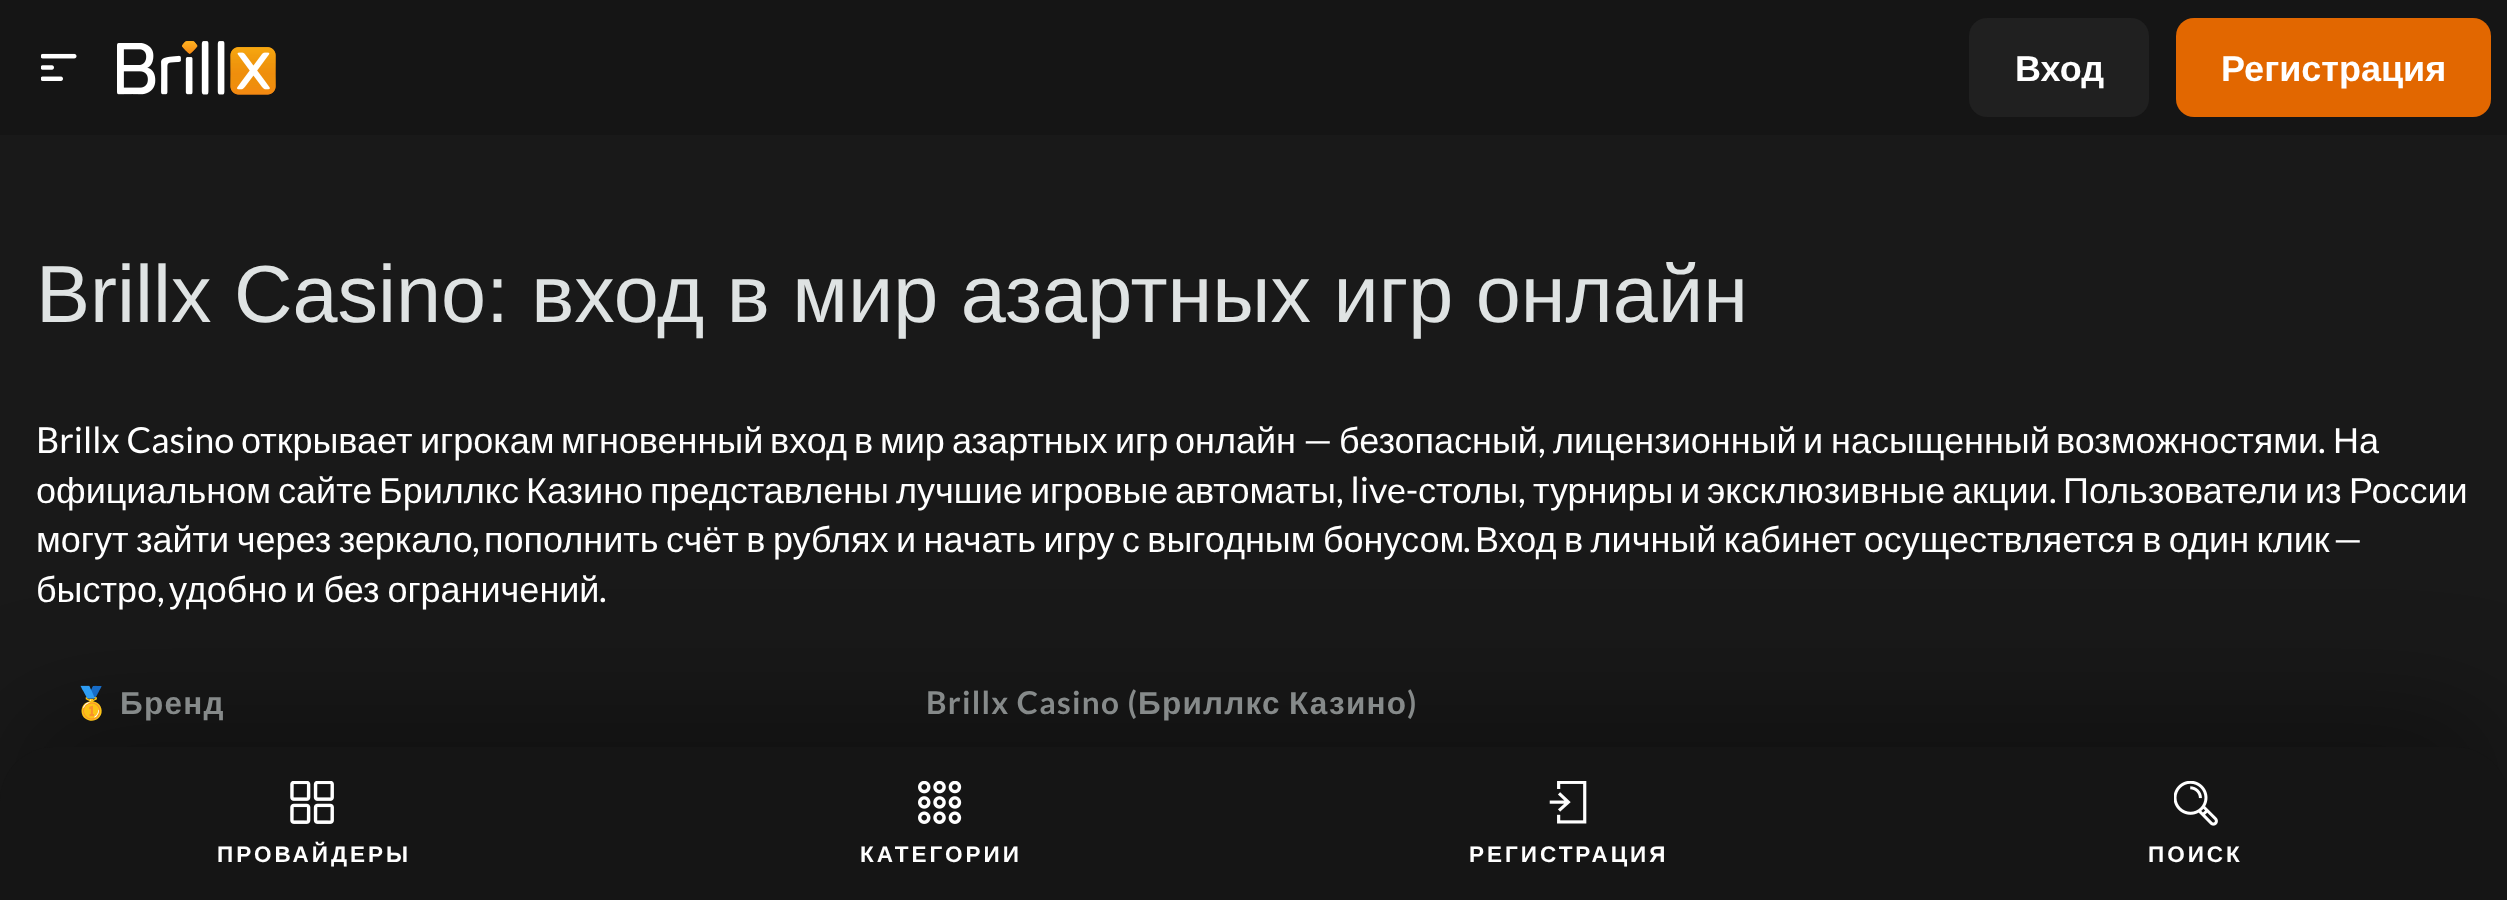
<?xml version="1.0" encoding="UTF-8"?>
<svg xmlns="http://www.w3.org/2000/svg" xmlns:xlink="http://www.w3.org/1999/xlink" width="2507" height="900">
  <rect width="100%" height="100%" fill="#191919" />
  <rect width="2507" height="135" fill="#151515" />
  <image x="41" y="53" width="36" height="28" xlink:href="image1.png" />
  <image x="117" y="41" width="159" height="54" xlink:href="image2.png" />
  <rect x="1969" y="18" width="180" height="99" rx="18" fill="#202020" />
  <rect x="2176" y="18" width="315" height="99" rx="18" fill="#e26700" />
  <rect x="20" y="720" width="2473" height="117" rx="36" fill="#000000" fill-opacity="0.4" filter="blur(58.5px)" />
  <path d="M 54 747 h 2401 c 30 0 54 24 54 54 v 99 h -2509 v -99 c 0 -30 24 -54 54 -54 z" fill="#151515" />
  <image x="290" y="781" width="44" height="43" xlink:href="image3.png" />
  <image x="918" y="781" width="44" height="43" xlink:href="image4.png" />
  <image x="1549" y="781" width="38" height="43" xlink:href="image5.png" />
  <image x="2174" y="781" width="44" height="45" xlink:href="image6.png" />
  <text x="2015" y="81" style="font-family: Liberation Sans; font-size: 36px; font-weight: bold; fill: #ffffff">Вход</text>
  <text x="2221" y="81" style="font-family: Liberation Sans; font-size: 36px; font-weight: bold; fill: #ffffff">Регистрация</text>
  <text x="36" y="322" style="font-family: Liberation Sans; font-size: 81px; fill: #dfe3e3">Brillx Casino: вход в мир азартных игр онлайн</text>
  <text x="36" y="453" style="font-family: Lato; font-size: 36px; fill: #ffffff">Brillx Casino</text>
  <text x="241" y="453" style="font-family: Liberation Sans; font-size: 36px; fill: #ffffff">открывает</text>
  <text x="420" y="453" style="font-family: Liberation Sans; font-size: 36px; fill: #ffffff">игрокам</text>
  <text x="561" y="453" style="font-family: Liberation Sans; font-size: 36px; fill: #ffffff">мгновенный</text>
  <text x="770" y="453" style="font-family: Liberation Sans; font-size: 36px; fill: #ffffff">вход</text>
  <text x="854" y="453" style="font-family: Liberation Sans; font-size: 36px; fill: #ffffff">в</text>
  <text x="880" y="453" style="font-family: Liberation Sans; font-size: 36px; fill: #ffffff">мир</text>
  <text x="952" y="453" style="font-family: Liberation Sans; font-size: 36px; fill: #ffffff">азартных</text>
  <text x="1115" y="453" style="font-family: Liberation Sans; font-size: 36px; fill: #ffffff">игр</text>
  <text x="1175" y="453" style="font-family: Liberation Sans; font-size: 36px; fill: #ffffff">онлайн</text>
  <text x="1303" y="453" style="font-family: Lato; font-size: 36px; fill: #ffffff">—</text>
  <text x="1339" y="453" style="font-family: Liberation Sans; font-size: 36px; fill: #ffffff">безопасный</text>
  <text x="1553" y="453" style="font-family: Liberation Sans; font-size: 36px; fill: #ffffff">лицензионный</text>
  <text x="1803" y="453" style="font-family: Liberation Sans; font-size: 36px; fill: #ffffff">и</text>
  <text x="1831" y="453" style="font-family: Liberation Sans; font-size: 36px; fill: #ffffff">насыщенный</text>
  <text x="2056" y="453" style="font-family: Liberation Sans; font-size: 36px; fill: #ffffff">возможностями</text>
  <text x="2333" y="453" style="font-family: Liberation Sans; font-size: 36px; fill: #ffffff">На</text>
  <text x="1538" y="453" style="font-family: Lato; font-size: 36px; fill: #ffffff">,</text>
  <text x="2318" y="453" style="font-family: Lato; font-size: 36px; fill: #ffffff">.</text>
  <text x="36" y="503" style="font-family: Liberation Sans; font-size: 36px; fill: #ffffff">официальном</text>
  <text x="278" y="503" style="font-family: Liberation Sans; font-size: 36px; fill: #ffffff">сайте</text>
  <text x="379" y="503" style="font-family: Liberation Sans; font-size: 36px; fill: #ffffff">Бриллкс</text>
  <text x="526" y="503" style="font-family: Liberation Sans; font-size: 36px; fill: #ffffff">Казино</text>
  <text x="650" y="503" style="font-family: Liberation Sans; font-size: 36px; fill: #ffffff">представлены</text>
  <text x="896" y="503" style="font-family: Liberation Sans; font-size: 36px; fill: #ffffff">лучшие</text>
  <text x="1030" y="503" style="font-family: Liberation Sans; font-size: 36px; fill: #ffffff">игровые</text>
  <text x="1175" y="503" style="font-family: Liberation Sans; font-size: 36px; fill: #ffffff">автоматы</text>
  <text x="1336" y="503" style="font-family: Lato; font-size: 36px; fill: #ffffff">, live-</text>
  <text x="1418" y="503" style="font-family: Liberation Sans; font-size: 36px; fill: #ffffff">столы</text>
  <text x="1518" y="503" style="font-family: Lato; font-size: 36px; fill: #ffffff">,</text>
  <text x="1533" y="503" style="font-family: Liberation Sans; font-size: 36px; fill: #ffffff">турниры</text>
  <text x="1680" y="503" style="font-family: Liberation Sans; font-size: 36px; fill: #ffffff">и</text>
  <text x="1707" y="503" style="font-family: Liberation Sans; font-size: 36px; fill: #ffffff">эксклюзивные</text>
  <text x="1952" y="503" style="font-family: Liberation Sans; font-size: 36px; fill: #ffffff">акции</text>
  <text x="2049" y="503" style="font-family: Lato; font-size: 36px; fill: #ffffff">.</text>
  <text x="2063" y="503" style="font-family: Liberation Sans; font-size: 36px; fill: #ffffff">Пользователи</text>
  <text x="2305" y="503" style="font-family: Liberation Sans; font-size: 36px; fill: #ffffff">из</text>
  <text x="2349" y="503" style="font-family: Liberation Sans; font-size: 36px; fill: #ffffff">России</text>
  <text x="36" y="552" word-spacing="-2.5" style="font-family: Liberation Sans; font-size: 36px; fill: #ffffff">могут зайти через зеркало</text>
  <text x="484" y="552" word-spacing="-2.5" style="font-family: Liberation Sans; font-size: 36px; fill: #ffffff">пополнить счёт в рублях и начать игру с выгодным бонусом</text>
  <text x="1475" y="552" word-spacing="-2.5" style="font-family: Liberation Sans; font-size: 36px; fill: #ffffff">Вход в личный кабинет осуществляется в один клик</text>
  <text x="2333" y="552" style="font-family: Lato; font-size: 36px; fill: #ffffff">—</text>
  <text x="472" y="552" style="font-family: Lato; font-size: 36px; fill: #ffffff">,</text>
  <text x="1463" y="552" style="font-family: Lato; font-size: 36px; fill: #ffffff">.</text>
  <text x="36" y="602" style="font-family: Liberation Sans; font-size: 36px; fill: #ffffff">быстро</text>
  <text x="157" y="602" style="font-family: Lato; font-size: 36px; fill: #ffffff">,</text>
  <text x="169" y="602" word-spacing="-2" style="font-family: Liberation Sans; font-size: 36px; fill: #ffffff">удобно и без ограничений</text>
  <text x="599" y="602" style="font-family: Lato; font-size: 36px; fill: #ffffff">.</text>
  <text x="72" y="714" style="font-family: Noto Color Emoji; font-size: 31.5px; font-weight: bold; letter-spacing: 1.25px; fill: #868a8a">🥇</text>
  <text x="120" y="714" style="font-family: Liberation Sans; font-size: 31.5px; font-weight: bold; letter-spacing: 1.25px; fill: #868a8a">Бренд</text>
  <text x="926" y="714" style="font-family: Lato; font-size: 31.5px; font-weight: bold; letter-spacing: 1.25px; fill: #868a8a">Brillx Casino (</text>
  <text x="1138" y="714" style="font-family: Liberation Sans; font-size: 31.5px; font-weight: bold; letter-spacing: 1.25px; fill: #868a8a">Бриллкс</text>
  <text x="1289" y="714" style="font-family: Liberation Sans; font-size: 31.5px; font-weight: bold; letter-spacing: 1.25px; fill: #868a8a">Казино</text>
  <text x="1407" y="714" style="font-family: Lato; font-size: 31.5px; font-weight: bold; letter-spacing: 1.25px; fill: #868a8a">)</text>
  <text x="217" y="862" style="font-family: Liberation Sans; font-size: 22.5px; font-weight: bold; letter-spacing: 3px; fill: #ffffff">ПРОВАЙДЕРЫ</text>
  <text x="860" y="862" style="font-family: Liberation Sans; font-size: 22.5px; font-weight: bold; letter-spacing: 3px; fill: #ffffff">КАТЕГОРИИ</text>
  <text x="1469" y="862" style="font-family: Liberation Sans; font-size: 22.5px; font-weight: bold; letter-spacing: 3px; fill: #ffffff">РЕГИСТРАЦИЯ</text>
  <text x="2148" y="862" style="font-family: Liberation Sans; font-size: 22.5px; font-weight: bold; letter-spacing: 3px; fill: #ffffff">ПОИСК</text>
</svg>
